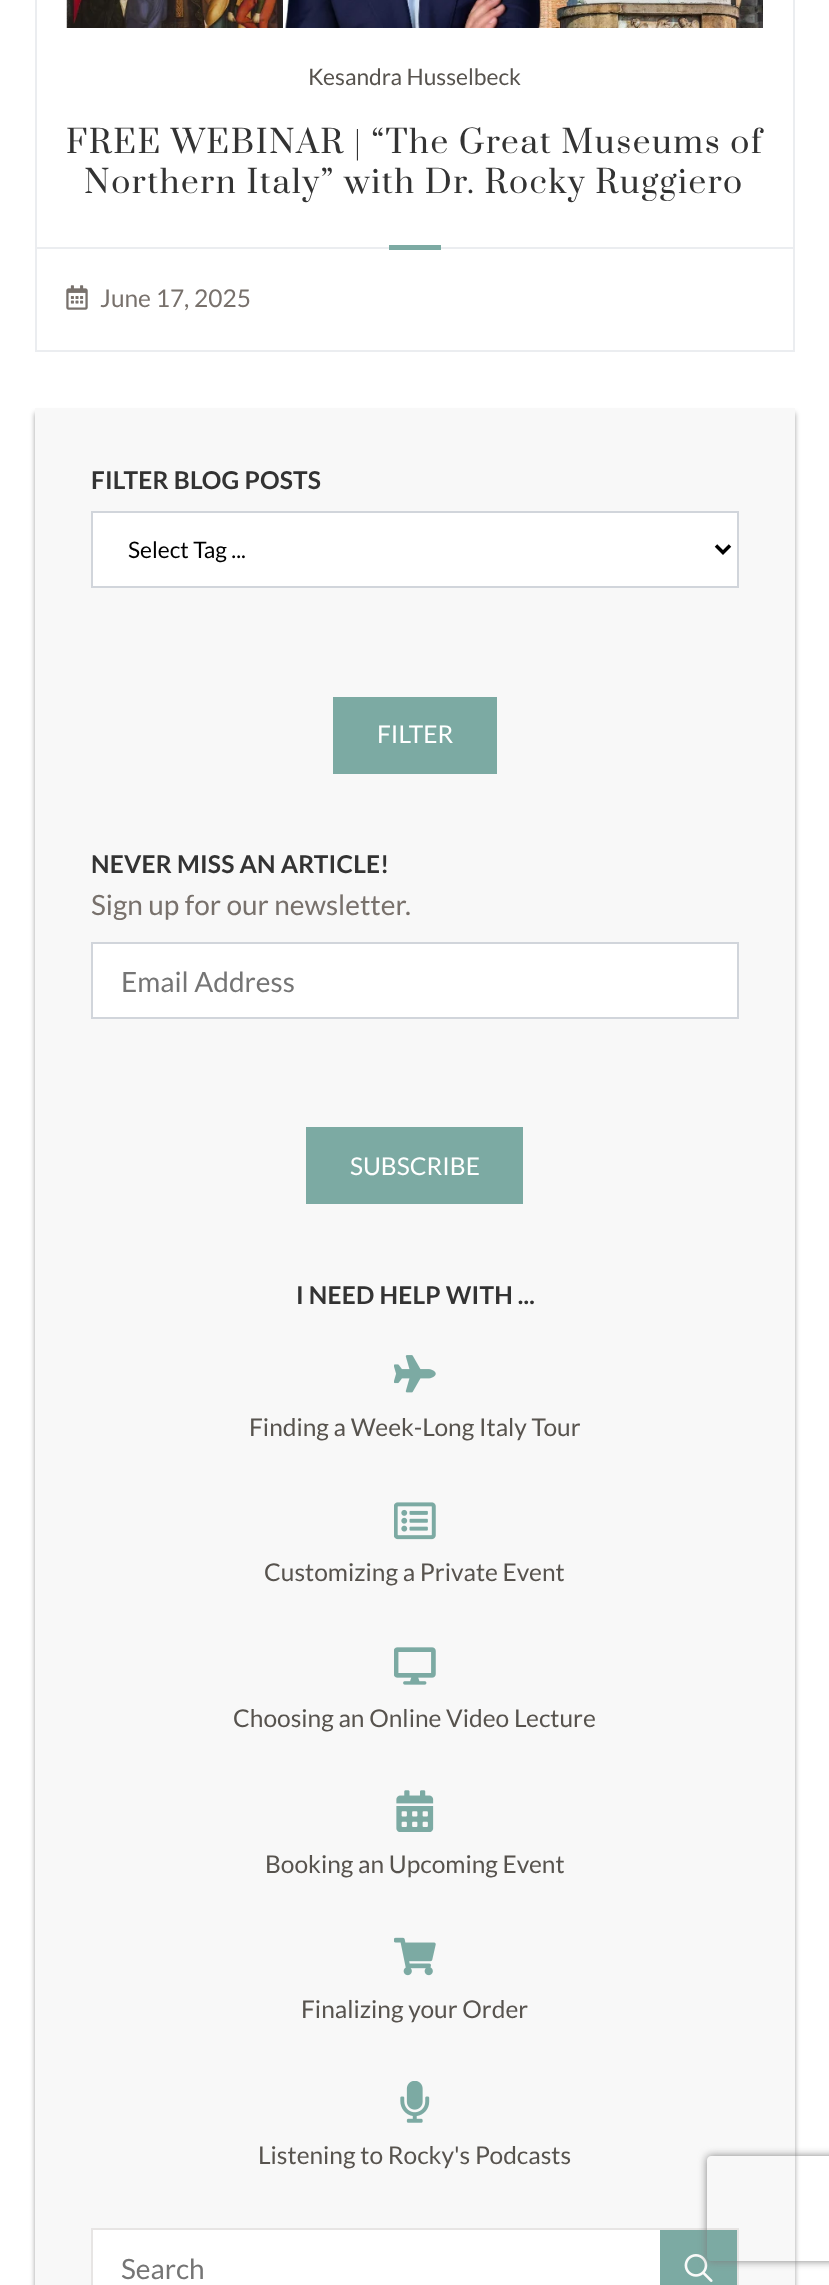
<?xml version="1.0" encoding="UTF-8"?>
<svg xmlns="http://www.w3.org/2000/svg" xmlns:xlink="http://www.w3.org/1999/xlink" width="829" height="2285">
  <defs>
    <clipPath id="clip1"><path d="M 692 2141 h 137 v 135 h -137 z m 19 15 h 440 c 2 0 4 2 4 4 v 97 c 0 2 -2 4 -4 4 h -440 c -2 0 -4 -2 -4 -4 v -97 c 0 -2 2 -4 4 -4 z" clip-rule="evenodd" /></clipPath>
  </defs>
  <rect width="100%" height="100%" fill="#ffffff" />
  <rect x="36" y="-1" width="758" height="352" fill="none" stroke="#ebedf0" stroke-width="2" />
  <image x="66" y="0" width="697" height="28" xlink:href="image1.png" />
  <rect x="37" y="247" width="756" height="2" fill="#ebedf0" />
  <rect x="389" y="245" width="52" height="5" fill="#7caaa3" />
  <image x="66" y="285" width="22" height="25" xlink:href="image2.png" />
  <rect x="35" y="413" width="760" height="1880" fill="#000000" fill-opacity="0.38" filter="blur(2.5px)" />
  <rect x="35" y="408" width="760" height="1877" fill="#f8f8f8" />
  <rect x="92" y="512" width="646" height="75" fill="#ffffff" stroke="#d1d5db" stroke-width="2" />
  <path d="M 716 545.5 l 7 7 l 7 -7" fill="none" stroke="#000000" stroke-width="3.5" />
  <rect x="333" y="697" width="164" height="77" fill="#7caaa3" />
  <rect x="92" y="943" width="646" height="75" fill="#ffffff" stroke="#d1d5db" stroke-width="2" />
  <rect x="306" y="1127" width="217" height="77" fill="#7caaa3" />
  <image x="394" y="1355" width="42" height="38" xlink:href="image3.png" />
  <image x="394" y="1502" width="42" height="38" xlink:href="image4.png" />
  <image x="394" y="1647" width="42" height="38" xlink:href="image5.png" />
  <image x="396" y="1790" width="38" height="42" xlink:href="image6.png" />
  <image x="394" y="1937" width="42" height="39" xlink:href="image7.png" />
  <image x="400" y="2081" width="30" height="42" xlink:href="image8.png" />
  <rect x="93" y="2230" width="567" height="55" fill="#ffffff" />
  <rect x="92" y="2229" width="646" height="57" fill="none" stroke="#e7e5e4" stroke-width="2" />
  <rect x="660" y="2230" width="77" height="55" fill="#7caaa3" />
  <image x="684" y="2254" width="29" height="28" xlink:href="image9.png" />
  <g clip-path="url(#clip1)">
    <rect x="707" y="2156" width="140" height="105" rx="4" fill="#808080" filter="blur(4.5px)" />
  </g>
  <text x="308" y="85" style="font-family: Lato; font-size: 22.75px; fill: #57534e">Kesandra Husselbeck</text>
  <text x="66" y="153" style="font-family: Prata; font-size: 31.5px; letter-spacing: 1.55px; fill: #333333">FREE WEBINAR | “The Great Museums of</text>
  <text x="84" y="193" style="font-family: Prata; font-size: 31.5px; letter-spacing: 1.55px; fill: #333333">Northern Italy” with Dr. Rocky Ruggiero</text>
  <text x="100" y="307" style="font-family: Lato; font-size: 24.5px; fill: #78716c">June 17, 2025</text>
  <text x="91" y="489" style="font-family: Lato; font-size: 24.5px; font-weight: bold; letter-spacing: 0.2px; fill: #333333">FILTER BLOG POSTS</text>
  <text x="128" y="558" style="font-family: Lato; font-size: 22.75px; fill: #000000">Select Tag ...</text>
  <text x="377" y="743" style="font-family: Lato; font-size: 24.5px; fill: #ffffff">FILTER</text>
  <text x="91" y="873" style="font-family: Lato; font-size: 24.5px; font-weight: bold; letter-spacing: 0.2px; fill: #333333">NEVER MISS AN ARTICLE!</text>
  <text x="91" y="915" style="font-family: Lato; font-size: 28px; fill: #78716c">Sign up for our newsletter.</text>
  <text x="121" y="992" style="font-family: Lato; font-size: 28px; fill: #757575">Email Address</text>
  <text x="350" y="1175" style="font-family: Lato; font-size: 24.5px; fill: #ffffff">SUBSCRIBE</text>
  <text x="296" y="1304" style="font-family: Lato; font-size: 24.5px; font-weight: bold; letter-spacing: 0.2px; fill: #333333">I NEED HELP WITH ...</text>
  <text x="249" y="1436" style="font-family: Lato; font-size: 24.5px; fill: #57534e">Finding a Week-Long Italy Tour</text>
  <text x="264" y="1581" style="font-family: Lato; font-size: 24.5px; fill: #57534e">Customizing a Private Event</text>
  <text x="233" y="1727" style="font-family: Lato; font-size: 24.5px; fill: #57534e">Choosing an Online Video Lecture</text>
  <text x="265" y="1873" style="font-family: Lato; font-size: 24.5px; fill: #57534e">Booking an Upcoming Event</text>
  <text x="301" y="2018" style="font-family: Lato; font-size: 24.5px; fill: #57534e">Finalizing your Order</text>
  <text x="258" y="2164" style="font-family: Lato; font-size: 24.5px; fill: #57534e">Listening to Rocky's Podcasts</text>
  <text x="121" y="2279" style="font-family: Lato; font-size: 28px; fill: #757575">Search</text>
</svg>
